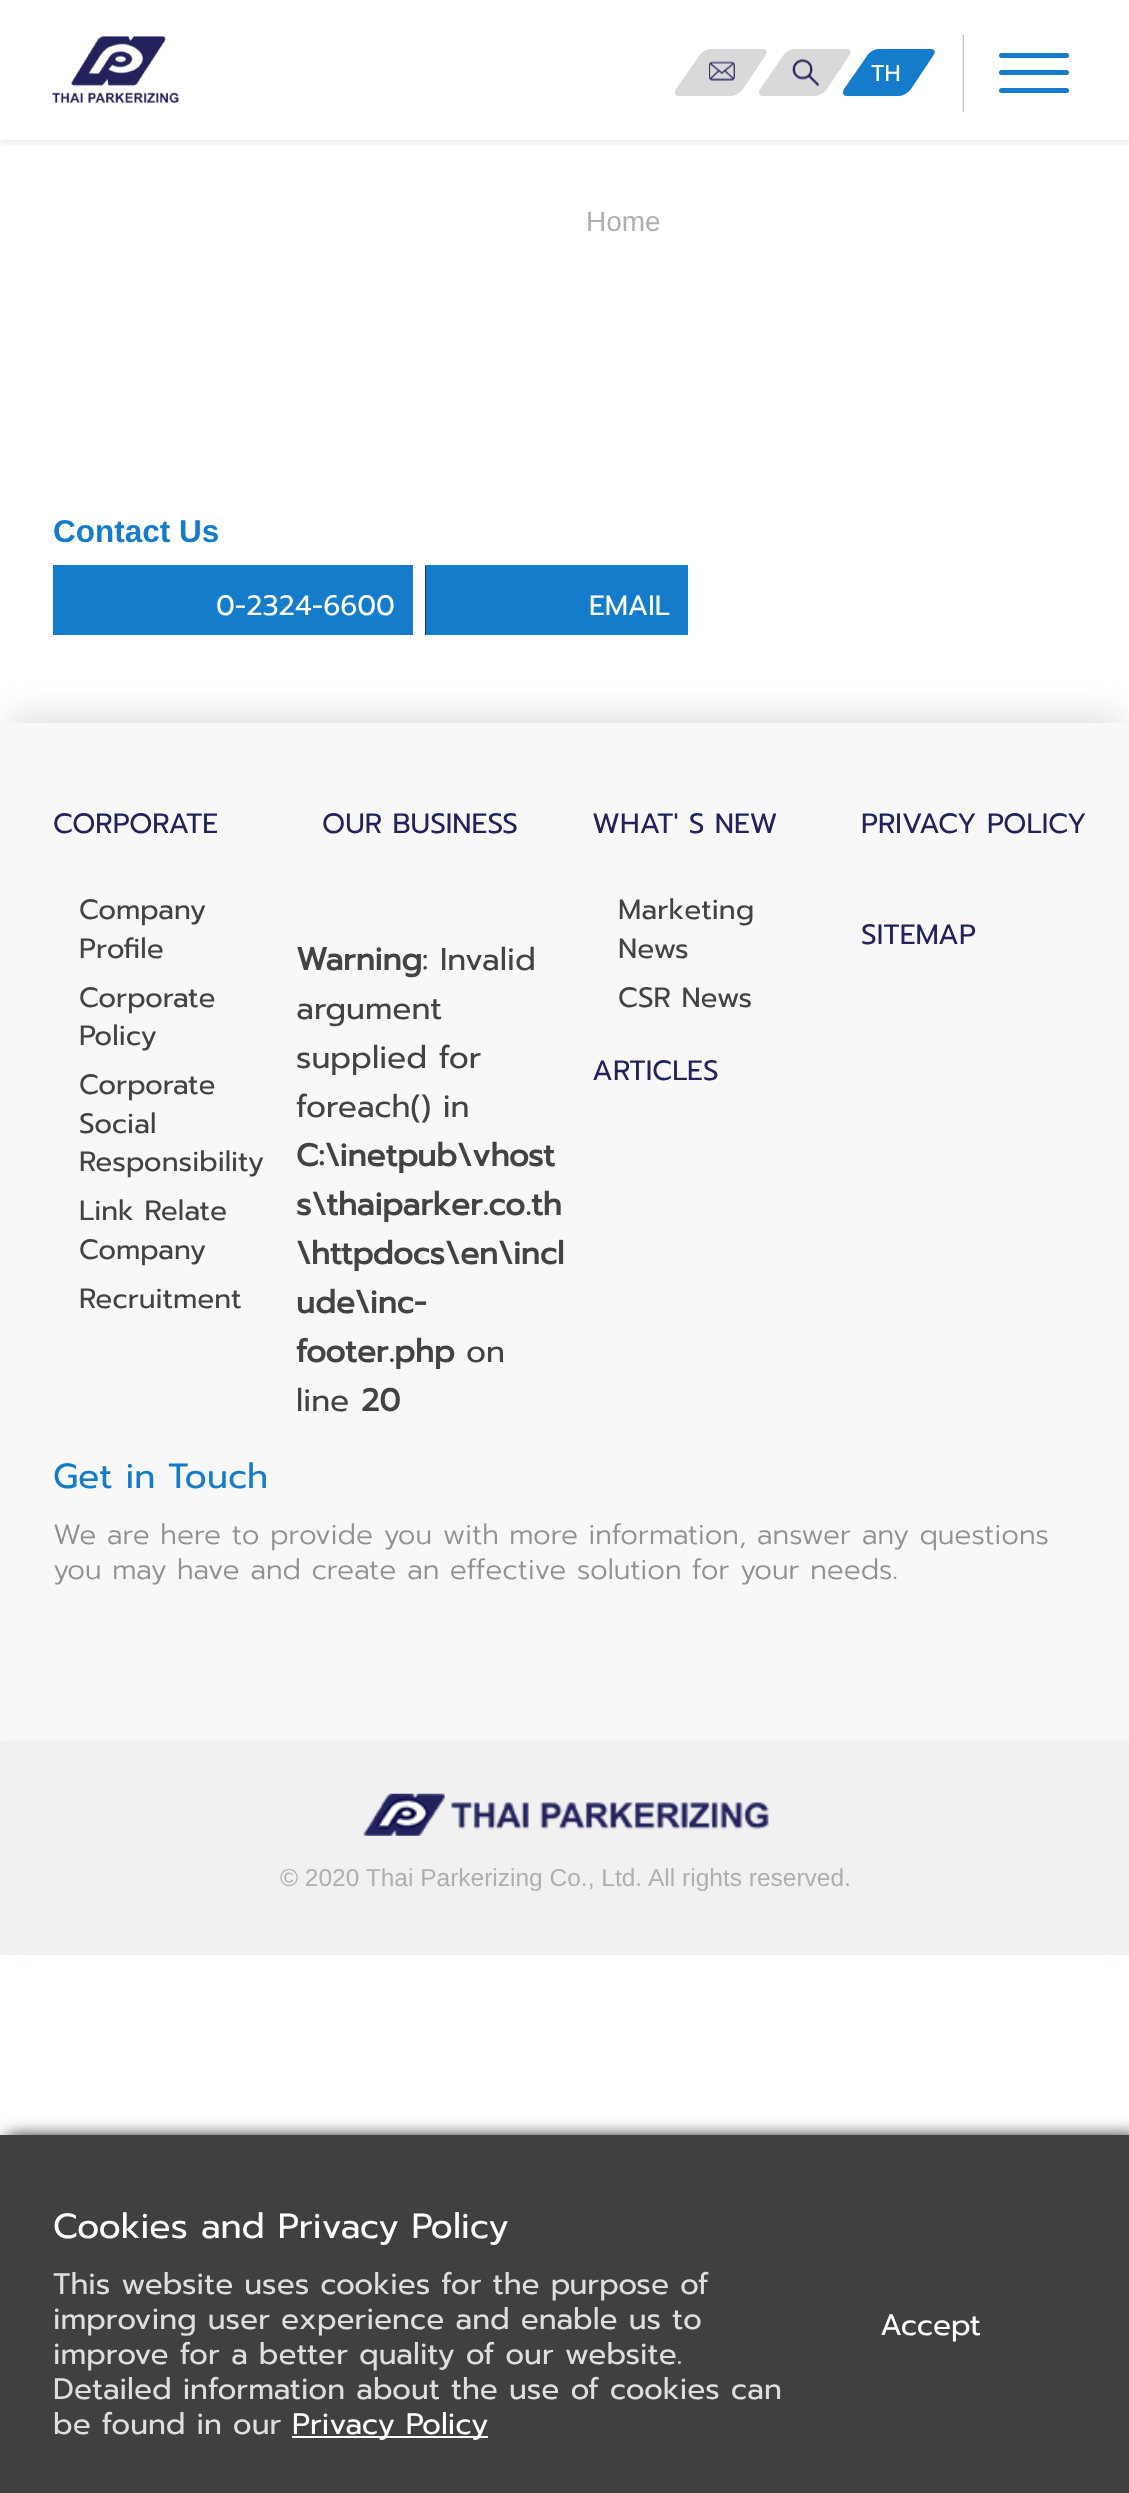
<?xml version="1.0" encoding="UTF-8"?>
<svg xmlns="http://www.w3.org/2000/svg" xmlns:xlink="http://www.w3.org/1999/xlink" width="1129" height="2493">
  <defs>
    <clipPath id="clip1"><rect x="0" y="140" width="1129" height="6" /></clipPath>
  </defs>
  <rect width="100%" height="100%" fill="#ffffff" />
  <g clip-path="url(#clip1)">
    <rect y="4" width="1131" height="140" fill="#000000" fill-opacity="0.07" filter="blur(3.5px)" />
  </g>
  <image x="52" y="36" width="127" height="67" xlink:href="image1.png" />
  <path d="M 710 49 h 53 c 4 0 5 3 2 7 l -22 33 c -3 4 -8 7 -12 7 h -52 c -4 0 -5 -3 -3 -7 l 23 -33 c 2 -4 8 -7 11 -7 z" fill="#d9d9d9" />
  <image x="709" y="61" width="26" height="20" xlink:href="image2.png" />
  <path d="M 794 49 h 53 c 4 0 5 3 2 7 l -22 33 c -3 4 -8 7 -12 7 h -52 c -4 0 -5 -3 -3 -7 l 23 -33 c 2 -4 8 -7 11 -7 z" fill="#d9d9d9" />
  <image x="792" y="59" width="27" height="28" xlink:href="image3.png" />
  <path d="M 878 49 h 53 c 4 0 5 3 2 7 l -22 33 c -3 4 -8 7 -12 7 h -52 c -4 0 -5 -3 -3 -7 l 23 -33 c 2 -4 8 -7 11 -7 z" fill="#157ccb" />
  <image x="962" y="35" width="2" height="77" xlink:href="image4.png" />
  <rect x="999" y="53" width="70" height="5" rx="2.5" fill="#157ccb" />
  <rect x="999" y="70" width="70" height="5" rx="2.5" fill="#157ccb" />
  <rect x="999" y="88" width="70" height="5" rx="2.5" fill="#157ccb" />
  <rect x="53" y="565" width="360" height="70" fill="#157ccb" />
  <rect x="425" y="565" width="263" height="70" fill="#157ccb" />
  <rect x="425" y="566" width="1" height="69" fill="#202f6c" />
  <rect x="9" y="714" width="1113" height="1215" fill="#737373" fill-opacity="0.21" filter="blur(17.5px)" />
  <rect x="1" y="723" width="1128" height="1018" fill="#f8f8f8" />
  <rect y="1741" width="1129" height="214" fill="#f1f1f1" />
  <image x="363" y="1793" width="406" height="43" xlink:href="image5.png" />
  <rect x="7" y="2137" width="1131" height="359" fill="#000000" filter="blur(9px)" />
  <rect y="2135" width="1129" height="358" fill="#404040" />
  <rect x="292" y="2436" width="196" height="2" fill="#ffffff" />
  <text x="871" y="81" style="font-family: Prompt; font-size: 23px; fill: #ffffff">TH</text>
  <text x="586" y="231" style="font-family: Liberation Sans; font-size: 28px; fill: #afafaf">Home</text>
  <text x="53" y="542" style="font-family: Liberation Sans; font-size: 31.5px; font-weight: bold; fill: #157ccb">Contact Us</text>
  <text x="216" y="615" style="font-family: Prompt; font-size: 28px; fill: #ffffff">0-2324-6600</text>
  <text x="589" y="615" style="font-family: Prompt; font-size: 28px; fill: #ffffff">EMAIL</text>
  <text x="53" y="833" style="font-family: Prompt; font-size: 28px; fill: #22225c">CORPORATE</text>
  <text x="79" y="919" style="font-family: Prompt; font-size: 28px; fill: #434343">Company</text>
  <text x="79" y="958" style="font-family: Prompt; font-size: 28px; fill: #434343">Profile</text>
  <text x="79" y="1007" style="font-family: Prompt; font-size: 28px; fill: #434343">Corporate</text>
  <text x="79" y="1045" style="font-family: Prompt; font-size: 28px; fill: #434343">Policy</text>
  <text x="79" y="1094" style="font-family: Prompt; font-size: 28px; fill: #434343">Corporate</text>
  <text x="79" y="1133" style="font-family: Prompt; font-size: 28px; fill: #434343">Social</text>
  <text x="79" y="1171" style="font-family: Prompt; font-size: 28px; fill: #434343">Responsibility</text>
  <text x="79" y="1220" style="font-family: Prompt; font-size: 28px; fill: #434343">Link Relate</text>
  <text x="79" y="1259" style="font-family: Prompt; font-size: 28px; fill: #434343">Company</text>
  <text x="79" y="1308" style="font-family: Prompt; font-size: 28px; fill: #434343">Recruitment</text>
  <text x="322" y="833" style="font-family: Prompt; font-size: 28px; fill: #22225c">OUR BUSINESS</text>
  <text x="296" y="970" style="font-family: Prompt; font-size: 31.5px; font-weight: bold; fill: #434343">Warning</text>
  <text x="422" y="970" style="font-family: Prompt; font-size: 31.5px; fill: #434343">: Invalid</text>
  <text x="296" y="1019" style="font-family: Prompt; font-size: 31.5px; fill: #434343">argument</text>
  <text x="296" y="1068" style="font-family: Prompt; font-size: 31.5px; fill: #434343">supplied for</text>
  <text x="296" y="1117" style="font-family: Prompt; font-size: 31.5px; fill: #434343">foreach() in</text>
  <text x="296" y="1166" style="font-family: Prompt; font-size: 31.5px; font-weight: bold; fill: #434343">C:\inetpub\vhost</text>
  <text x="296" y="1215" style="font-family: Prompt; font-size: 31.5px; font-weight: bold; fill: #434343">s\thaiparker.co.th</text>
  <text x="296" y="1264" style="font-family: Prompt; font-size: 31.5px; font-weight: bold; fill: #434343">\httpdocs\en\incl</text>
  <text x="296" y="1313" style="font-family: Prompt; font-size: 31.5px; font-weight: bold; fill: #434343">ude\inc-</text>
  <text x="296" y="1362" style="font-family: Prompt; font-size: 31.5px; font-weight: bold; fill: #434343">footer.php</text>
  <text x="466" y="1362" style="font-family: Prompt; font-size: 31.5px; fill: #434343">on</text>
  <text x="296" y="1411" style="font-family: Prompt; font-size: 31.5px; fill: #434343">line</text>
  <text x="361" y="1411" style="font-family: Prompt; font-size: 31.5px; font-weight: bold; fill: #434343">20</text>
  <text x="592" y="833" style="font-family: Prompt; font-size: 28px; fill: #22225c">WHAT' S NEW</text>
  <text x="618" y="919" style="font-family: Prompt; font-size: 28px; fill: #434343">Marketing</text>
  <text x="618" y="958" style="font-family: Prompt; font-size: 28px; fill: #434343">News</text>
  <text x="618" y="1007" style="font-family: Prompt; font-size: 28px; fill: #434343">CSR News</text>
  <text x="592" y="1080" style="font-family: Prompt; font-size: 28px; fill: #22225c">ARTICLES</text>
  <text x="861" y="833" style="font-family: Prompt; font-size: 28px; fill: #22225c">PRIVACY POLICY</text>
  <text x="861" y="944" style="font-family: Prompt; font-size: 28px; fill: #22225c">SITEMAP</text>
  <text x="53" y="1488" style="font-family: Prompt; font-size: 35px; fill: #157ccb">Get in Touch</text>
  <text x="53" y="1544" style="font-family: Prompt; font-size: 28px; font-weight: 300; fill: #919191">We are here to provide you with more information, answer any questions</text>
  <text x="53" y="1579" style="font-family: Prompt; font-size: 28px; font-weight: 300; fill: #919191">you may have and create an effective solution for your needs.</text>
  <text x="280" y="1886" style="font-family: Liberation Sans; font-size: 24.5px; fill: #afafaf">© 2020 Thai Parkerizing Co., Ltd.</text>
  <text x="648" y="1886" style="font-family: Liberation Sans; font-size: 24.5px; fill: #afafaf">All rights reserved.</text>
  <text x="53" y="2238" style="font-family: Prompt; font-size: 35px; fill: #ffffff">Cookies and Privacy Policy</text>
  <text x="53" y="2294" style="font-family: Prompt; font-size: 29.75px; fill: #dedede">This website uses cookies for the purpose of</text>
  <text x="53" y="2329" style="font-family: Prompt; font-size: 29.75px; fill: #dedede">improving user experience and enable us to</text>
  <text x="53" y="2364" style="font-family: Prompt; font-size: 29.75px; fill: #dedede">improve for a better quality of our website.</text>
  <text x="53" y="2399" style="font-family: Prompt; font-size: 29.75px; fill: #dedede">Detailed information about the use of cookies can</text>
  <text x="53" y="2434" style="font-family: Prompt; font-size: 29.75px; fill: #dedede">be found in our</text>
  <text x="292" y="2434" style="font-family: Prompt; font-size: 29.75px; fill: #ffffff">Privacy Policy</text>
  <text x="880" y="2335" style="font-family: Prompt; font-size: 29.75px; fill: #ffffff">Accept</text>
</svg>
